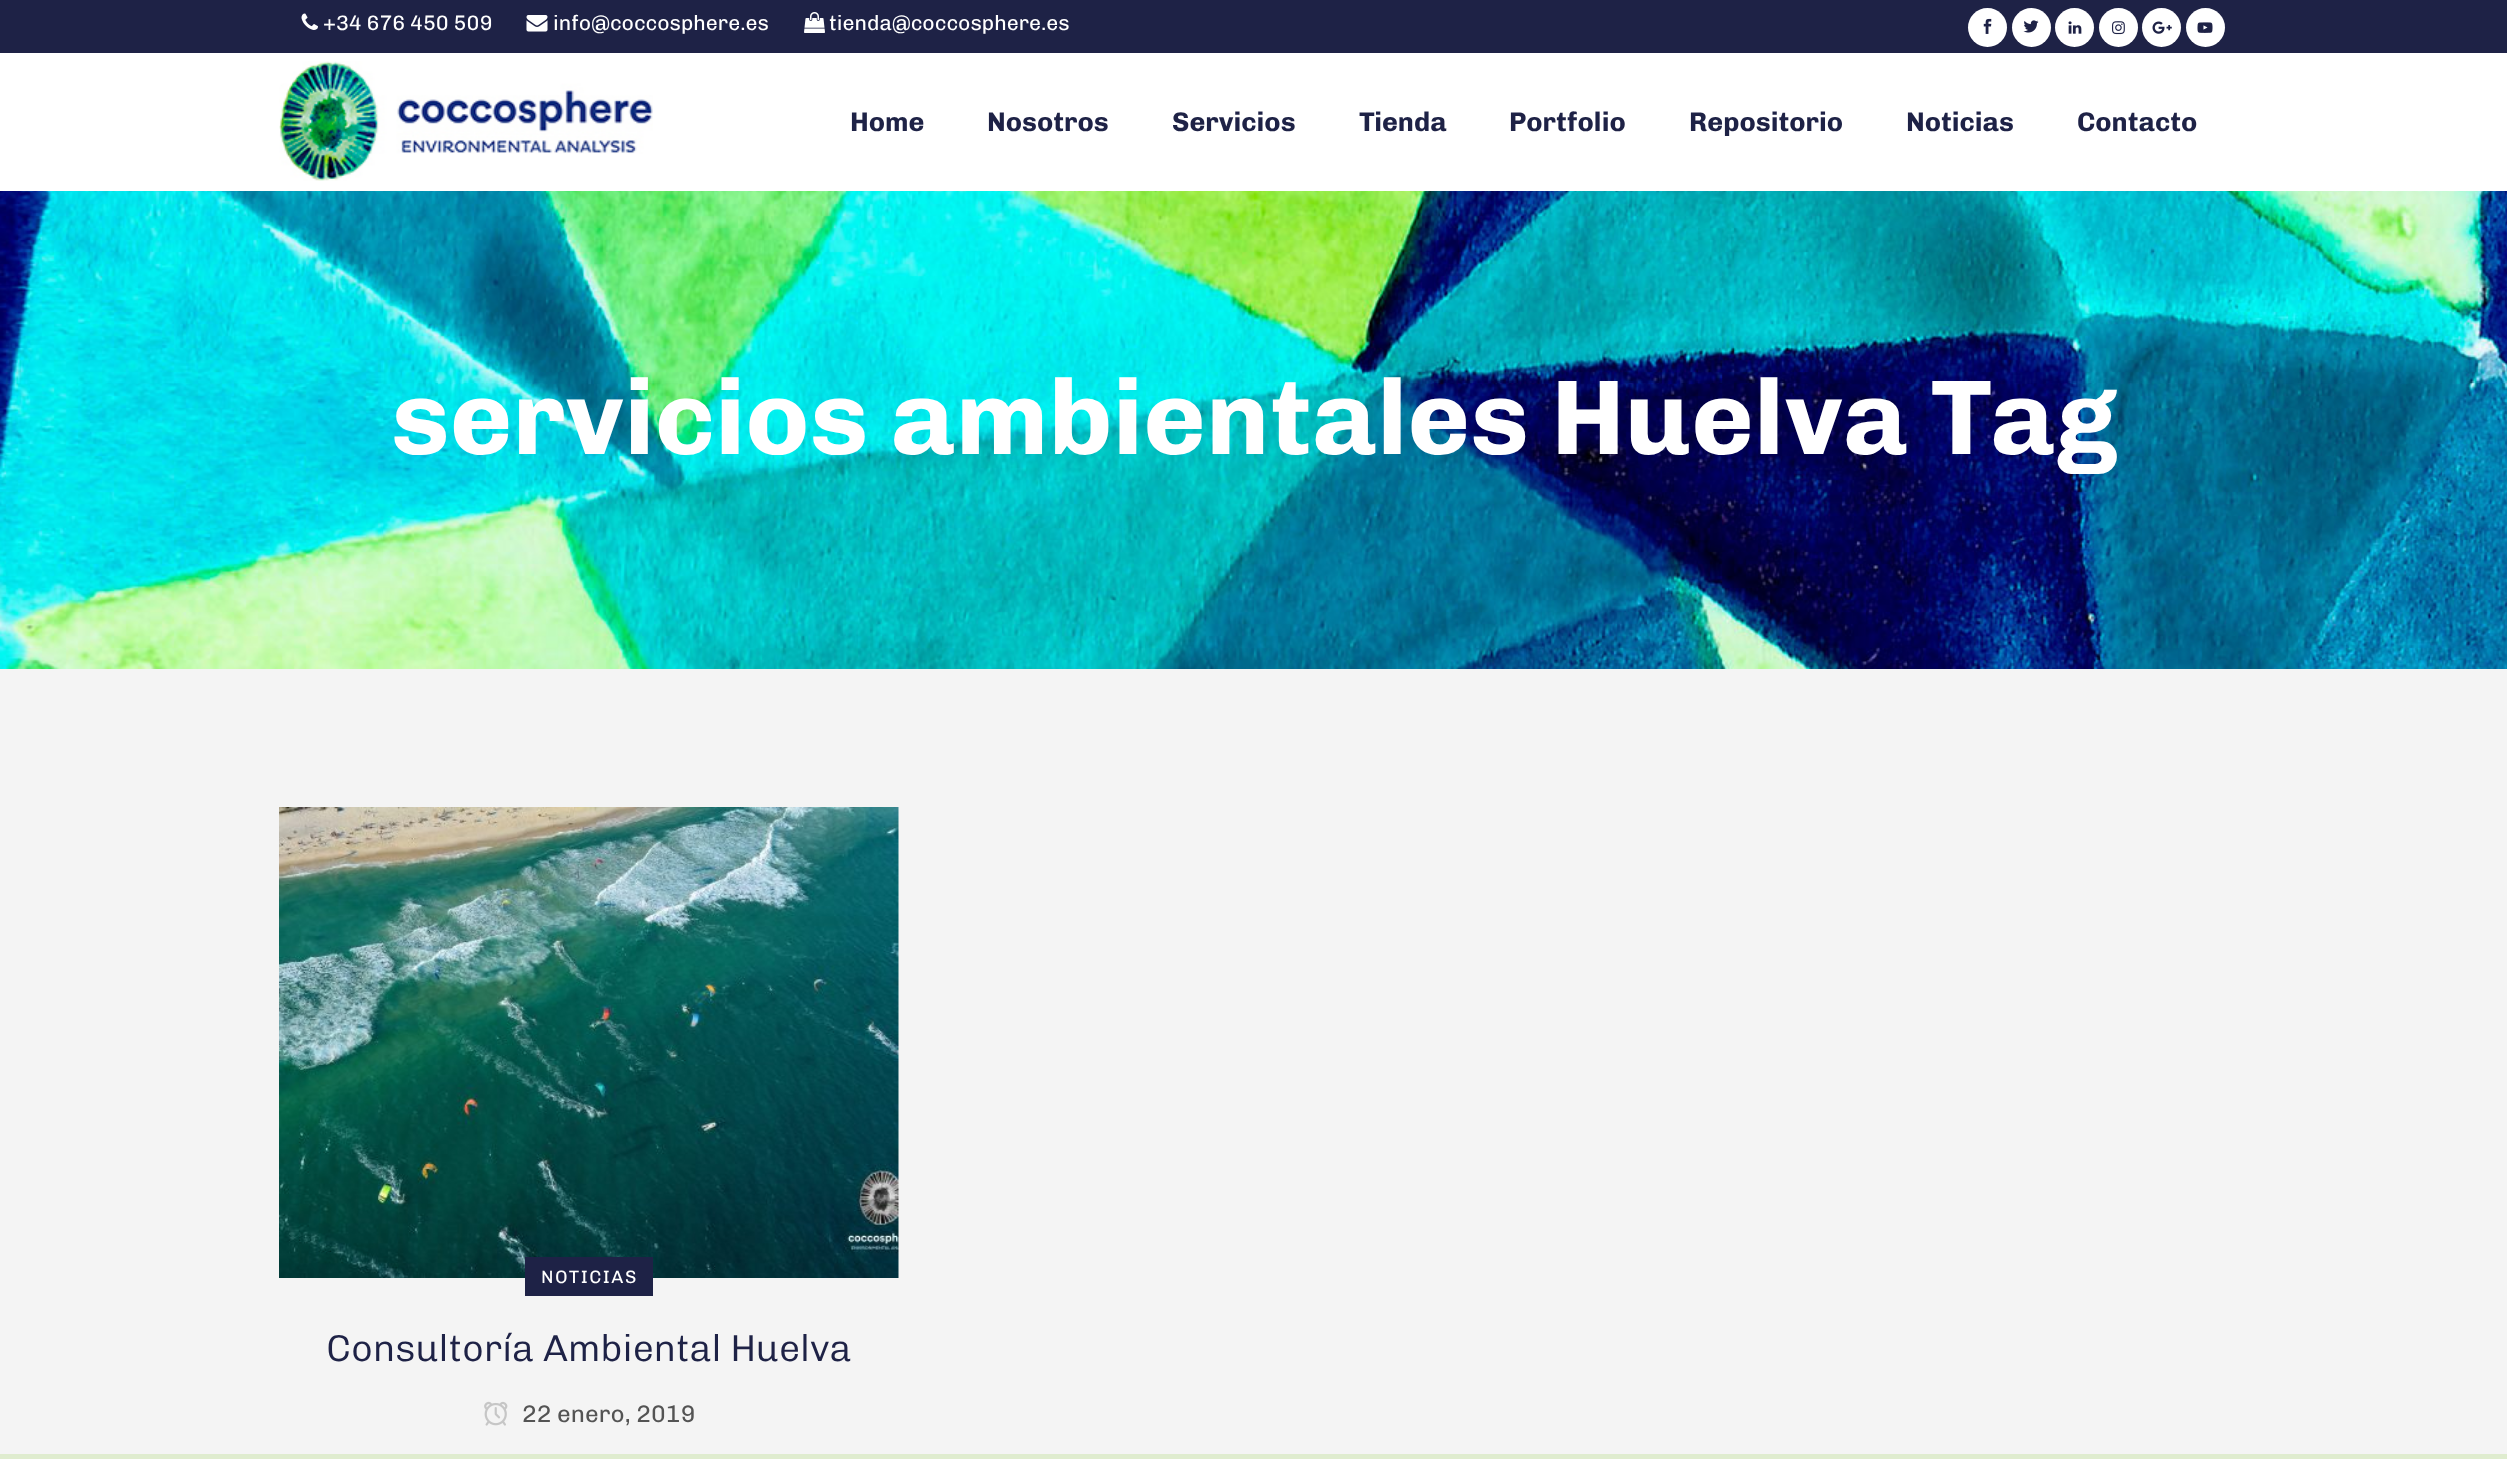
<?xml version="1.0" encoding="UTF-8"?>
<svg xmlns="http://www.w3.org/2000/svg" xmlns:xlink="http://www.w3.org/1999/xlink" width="2507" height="1459">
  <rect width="100%" height="100%" fill="#f4f4f4" />
  <rect width="2507" height="53" fill="#1e2246" />
  <image x="301" y="13" width="17" height="17" xlink:href="image1.png" />
  <image x="526" y="15" width="22" height="17" xlink:href="image2.png" />
  <image x="804" y="12" width="21" height="21" xlink:href="image3.png" />
  <circle cx="1987.5" cy="27.5" r="19.5" fill="#ffffff" />
  <image x="1983" y="18" width="9" height="16" xlink:href="image4.png" />
  <circle cx="2031.5" cy="27.5" r="19.5" fill="#ffffff" />
  <image x="2023" y="20" width="16" height="13" xlink:href="image5.png" />
  <circle cx="2074.5" cy="27.5" r="19.5" fill="#ffffff" />
  <image x="2068" y="21" width="14" height="13" xlink:href="image6.png" />
  <circle cx="2118.5" cy="27.5" r="19.5" fill="#ffffff" />
  <image x="2112" y="21" width="13" height="14" xlink:href="image7.png" />
  <circle cx="2161.5" cy="27.5" r="19.5" fill="#ffffff" />
  <image x="2152" y="21" width="20" height="13" xlink:href="image8.png" />
  <circle cx="2205.5" cy="27.5" r="19.5" fill="#ffffff" />
  <image x="2197" y="22" width="16" height="11" xlink:href="image9.png" />
  <rect y="53" width="2507" height="138" fill="#ffffff" />
  <image x="279" y="61" width="374" height="120" xlink:href="image10.png" />
  <image x="0" y="191" width="2507" height="478" xlink:href="image11.png" />
  <image x="279" y="807" width="620" height="471" xlink:href="image12.png" />
  <rect x="525" y="1257" width="128" height="39" fill="#1e2246" />
  <image x="484" y="1401" width="24" height="25" xlink:href="image13.png" />
  <rect y="1454" width="2507" height="5" fill="#dfeccf" />
  <text x="323" y="30" style="font-family: Chivo; font-size: 21px; fill: #ffffff">+34 676 450 509</text>
  <text x="553" y="30" style="font-family: Chivo; font-size: 21px; fill: #ffffff">info@coccosphere.es</text>
  <text x="829" y="30" style="font-family: Chivo; font-size: 21px; fill: #ffffff">tienda@coccosphere.es</text>
  <text x="850" y="131" style="font-family: Chivo; font-size: 27px; font-weight: bold; fill: #1e2246">Home</text>
  <text x="987" y="131" style="font-family: Chivo; font-size: 27px; font-weight: bold; fill: #1e2246">Nosotros</text>
  <text x="1172" y="131" style="font-family: Chivo; font-size: 27px; font-weight: bold; fill: #1e2246">Servicios</text>
  <text x="1359" y="131" style="font-family: Chivo; font-size: 27px; font-weight: bold; fill: #1e2246">Tienda</text>
  <text x="1509" y="131" style="font-family: Chivo; font-size: 27px; font-weight: bold; fill: #1e2246">Portfolio</text>
  <text x="1689" y="131" style="font-family: Chivo; font-size: 27px; font-weight: bold; fill: #1e2246">Repositorio</text>
  <text x="1906" y="131" style="font-family: Chivo; font-size: 27px; font-weight: bold; fill: #1e2246">Noticias</text>
  <text x="2077" y="131" style="font-family: Chivo; font-size: 27px; font-weight: bold; fill: #1e2246">Contacto</text>
  <text x="391" y="454" style="font-family: Chivo; font-size: 106.5px; font-weight: bold; fill: #ffffff">servicios ambientales Huelva Tag</text>
  <text x="541" y="1283" style="font-family: Chivo; font-size: 18px; letter-spacing: 1.5px; fill: #ffffff">NOTICIAS</text>
  <text x="326" y="1361" style="font-family: Chivo; font-size: 37.5px; font-weight: 300; fill: #1e2246">Consultoría Ambiental Huelva</text>
  <text x="522" y="1422" style="font-family: Chivo; font-size: 24px; fill: #545454">22 enero, 2019</text>
</svg>
